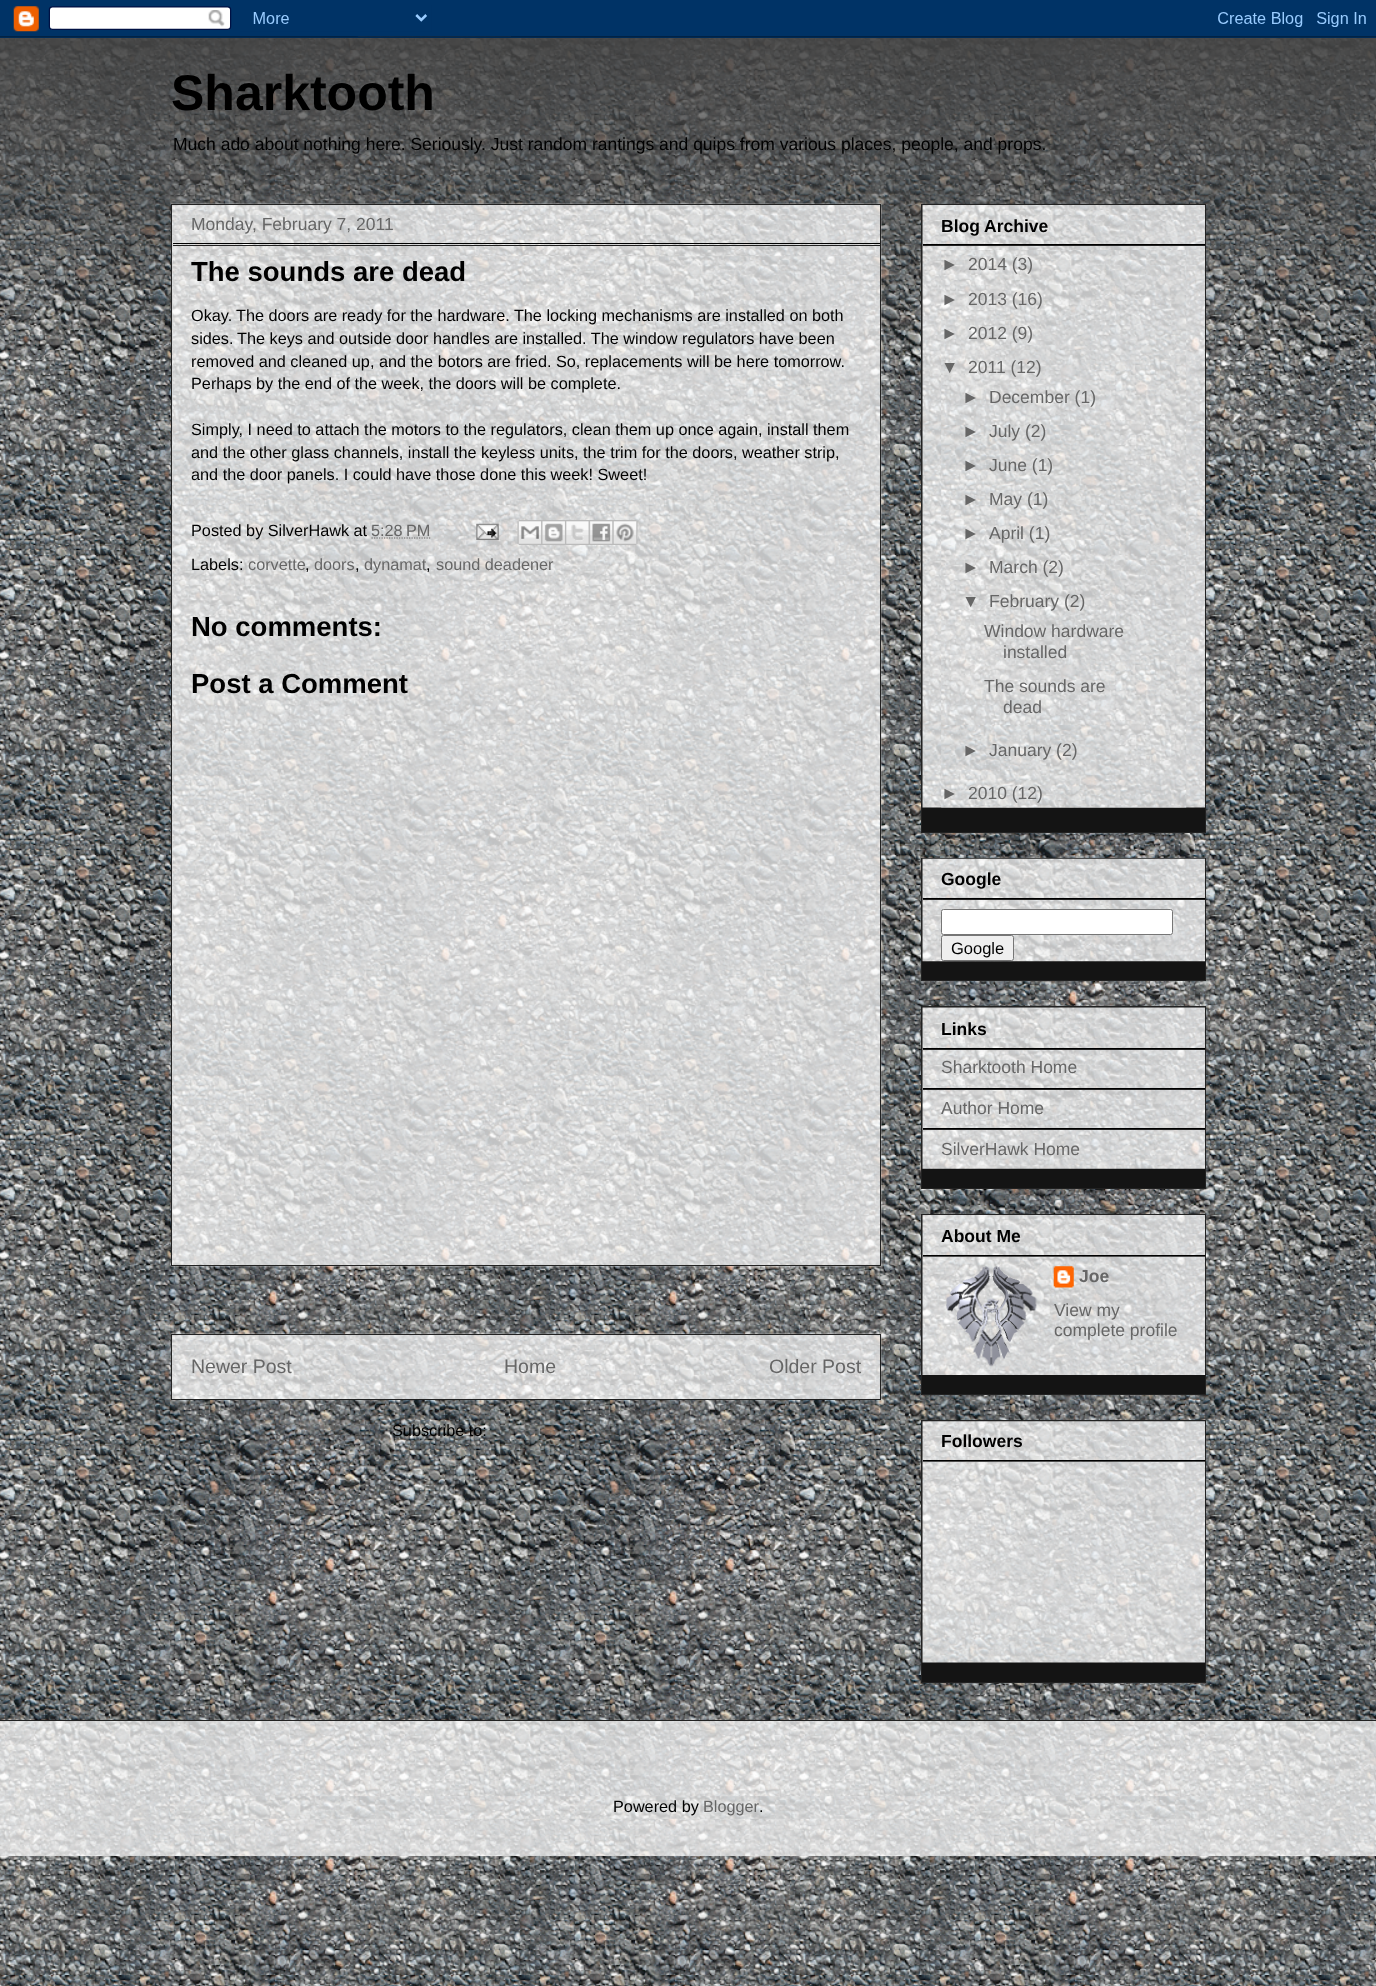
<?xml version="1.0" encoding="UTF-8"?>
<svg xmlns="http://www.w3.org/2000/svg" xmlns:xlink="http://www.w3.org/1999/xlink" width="1376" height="1986">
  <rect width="100%" height="100%" fill="#ffffff" />
  <image x="0" y="36" width="1376" height="1950" xlink:href="image1.png" />
  <image x="0" y="36" width="1376" height="308" xlink:href="image3.png" />
  <image x="0" y="0" width="1376" height="38" xlink:href="image2.png" />
  <image x="171" y="203" width="711" height="1064" xlink:href="image4.png" />
  <rect x="171.5" y="204.5" width="709" height="1061" fill="none" stroke="#222222" />
  <rect x="173" y="243" width="707" height="1" fill="#000000" />
  <rect x="173" y="245" width="707" height="1" fill="#222222" />
  <image x="172" y="256" width="708" height="1009" xlink:href="image5.png" />
  <path d="M 371.5 538 h 59" fill="none" stroke="#666666" stroke-width="1.2" stroke-dasharray="1.25 1.25" />
  <image x="476" y="523" width="23" height="17" xlink:href="image6.png" />
  <image x="517" y="520" width="25" height="25" xlink:href="image7.png" />
  <image x="541" y="520" width="24" height="25" xlink:href="image8.png" />
  <image x="565" y="520" width="24" height="25" xlink:href="image9.png" />
  <image x="588" y="520" width="25" height="25" xlink:href="image10.png" />
  <image x="612" y="520" width="26" height="25" xlink:href="image11.png" />
  <image x="171" y="1333" width="711" height="67" xlink:href="image12.png" />
  <rect x="171.5" y="1334.5" width="709" height="65" fill="none" stroke="#222222" />
  <rect x="921.5" y="204.5" width="284" height="628" fill="#141414" stroke="#222222" />
  <image x="922" y="205" width="283" height="40" xlink:href="image13.png" />
  <rect x="923" y="244" width="282" height="1" fill="#000000" />
  <image x="922" y="245" width="283" height="563" xlink:href="image14.png" />
  <rect x="923" y="245" width="282" height="1" fill="#222222" />
  <image x="941" y="250" width="246" height="558" xlink:href="image15.png" />
  <rect x="921.5" y="858.5" width="284" height="122" fill="#141414" stroke="#222222" />
  <image x="922" y="898" width="283" height="64" xlink:href="image17.png" />
  <image x="922" y="858" width="283" height="41" xlink:href="image16.png" />
  <rect x="923" y="898" width="282" height="1" fill="#000000" />
  <rect x="923" y="899" width="282" height="1" fill="#222222" />
  <rect x="941.5" y="909.5" width="231" height="25" rx="2" fill="#ffffff" stroke="#767676" />
  <rect x="941.5" y="935.5" width="72" height="25" rx="2" fill="#efefef" stroke="#767676" />
  <rect x="921.5" y="1006.5" width="284" height="182" fill="#141414" stroke="#222222" />
  <image x="922" y="1048" width="283" height="121" xlink:href="image19.png" />
  <image x="922" y="1007" width="283" height="42" xlink:href="image18.png" />
  <rect x="923" y="1048" width="282" height="1" fill="#000000" />
  <rect x="923" y="1049" width="282" height="1" fill="#222222" />
  <rect x="923" y="1088" width="282" height="1" fill="#000000" />
  <rect x="923" y="1089" width="282" height="1" fill="#222222" />
  <rect x="923" y="1128" width="282" height="1" fill="#000000" />
  <rect x="923" y="1129" width="282" height="1" fill="#222222" />
  <rect x="921.5" y="1214.5" width="284" height="180" fill="#141414" stroke="#222222" />
  <image x="922" y="1256" width="283" height="119" xlink:href="image21.png" />
  <rect x="923" y="1256" width="282" height="1" fill="#222222" />
  <image x="922" y="1215" width="283" height="42" xlink:href="image20.png" />
  <rect x="923" y="1255" width="282" height="1" fill="#000000" />
  <image x="946" y="1266" width="91" height="101" xlink:href="image22.png" />
  <image x="1053" y="1266" width="21" height="22" xlink:href="image23.png" />
  <rect x="921.5" y="1420.5" width="284" height="262" fill="#141414" stroke="#222222" />
  <image x="922" y="1461" width="283" height="202" xlink:href="image25.png" />
  <rect x="923" y="1461" width="282" height="1" fill="#222222" />
  <image x="922" y="1421" width="283" height="41" xlink:href="image24.png" />
  <rect x="923" y="1460" width="282" height="1" fill="#000000" />
  <image x="0" y="1721" width="1376" height="136" xlink:href="image26.png" />
  <rect y="1720" width="1376" height="1" fill="#222222" />
  <image x="170" y="1796" width="1038" height="23" xlink:href="image27.png" />
  <text x="171" y="110" style="font-family: Liberation Sans; font-size: 50px; font-weight: bold; fill: #000000">Sharktooth</text>
  <text x="173" y="150" style="font-family: Liberation Sans; font-size: 17.5px; fill: #000000">Much ado about nothing here. Seriously. Just random rantings and quips from various places, people, and props.</text>
  <text x="191" y="230" style="font-family: Liberation Sans; font-size: 17.5px; fill: #666666">Monday, February 7, 2011</text>
  <text x="191" y="281" style="font-family: Liberation Sans; font-size: 27.5px; font-weight: bold; fill: #000000">The sounds are dead</text>
  <text x="191" y="321" style="font-family: Liberation Sans; font-size: 16.25px; fill: #000000">Okay.</text>
  <text x="236" y="321" style="font-family: Liberation Sans; font-size: 16.25px; fill: #000000">The doors are ready for the hardware. The locking mechanisms are installed on both</text>
  <text x="191" y="344" style="font-family: Liberation Sans; font-size: 16.25px; fill: #000000">sides.</text>
  <text x="237" y="344" style="font-family: Liberation Sans; font-size: 16.25px; fill: #000000">The keys and outside door handles are installed. The window regulators have been</text>
  <text x="191" y="367" style="font-family: Liberation Sans; font-size: 16.25px; fill: #000000">removed and cleaned up, and the botors are fried. So, replacements will be here tomorrow.</text>
  <text x="191" y="389" style="font-family: Liberation Sans; font-size: 16.25px; fill: #000000">Perhaps by the end of the week, the doors will be complete.</text>
  <text x="191" y="435" style="font-family: Liberation Sans; font-size: 16.25px; fill: #000000">Simply, I need to attach the motors to the regulators, clean them up once again, install them</text>
  <text x="191" y="458" style="font-family: Liberation Sans; font-size: 16.25px; fill: #000000">and the other glass channels, install the keyless units, the trim for the doors, weather strip,</text>
  <text x="191" y="480" style="font-family: Liberation Sans; font-size: 16.25px; fill: #000000">and the door panels. I could have those done this week! Sweet!</text>
  <text x="191" y="536" style="font-family: Liberation Sans; font-size: 16.25px; fill: #000000">Posted by SilverHawk at</text>
  <text x="371" y="536" style="font-family: Liberation Sans; font-size: 16.25px; fill: #666666">5:28 PM</text>
  <text x="191" y="570" style="font-family: Liberation Sans; font-size: 16.25px; fill: #000000">Labels:</text>
  <text x="248" y="570" style="font-family: Liberation Sans; font-size: 16.25px; fill: #666666">corvette</text>
  <text x="305" y="570" style="font-family: Liberation Sans; font-size: 16.25px; fill: #000000">,</text>
  <text x="314" y="570" style="font-family: Liberation Sans; font-size: 16.25px; fill: #666666">doors</text>
  <text x="355" y="570" style="font-family: Liberation Sans; font-size: 16.25px; fill: #000000">,</text>
  <text x="364" y="570" style="font-family: Liberation Sans; font-size: 16.25px; fill: #666666">dynamat</text>
  <text x="426" y="570" style="font-family: Liberation Sans; font-size: 16.25px; fill: #000000">,</text>
  <text x="436" y="570" style="font-family: Liberation Sans; font-size: 16.25px; fill: #666666">sound deadener</text>
  <text x="191" y="636" style="font-family: Liberation Sans; font-size: 27.5px; font-weight: bold; fill: #000000">No comments:</text>
  <text x="191" y="693" style="font-family: Liberation Sans; font-size: 27.5px; font-weight: bold; fill: #000000">Post a Comment</text>
  <text x="191" y="1373" style="font-family: Liberation Sans; font-size: 19.5px; fill: #666666">Newer Post</text>
  <text x="504" y="1373" style="font-family: Liberation Sans; font-size: 19.5px; fill: #666666">Home</text>
  <text x="769" y="1373" style="font-family: Liberation Sans; font-size: 19.5px; fill: #666666">Older Post</text>
  <text x="392" y="1436" style="font-family: Liberation Sans; font-size: 16.25px; fill: #000000">Subscribe to:</text>
  <text x="941" y="232" style="font-family: Liberation Sans; font-size: 17.5px; font-weight: bold; fill: #000000">Blog Archive</text>
  <text x="941" y="270" style="font-family: Liberation Sans; font-size: 17.5px; fill: #666666">►</text>
  <text x="968" y="270" style="font-family: Liberation Sans; font-size: 17.5px; fill: #666666">2014 (3)</text>
  <text x="941" y="305" style="font-family: Liberation Sans; font-size: 17.5px; fill: #666666">►</text>
  <text x="968" y="305" style="font-family: Liberation Sans; font-size: 17.5px; fill: #666666">2013 (16)</text>
  <text x="941" y="339" style="font-family: Liberation Sans; font-size: 17.5px; fill: #666666">►</text>
  <text x="968" y="339" style="font-family: Liberation Sans; font-size: 17.5px; fill: #666666">2012 (9)</text>
  <text x="941" y="373" style="font-family: Liberation Sans; font-size: 17.5px; fill: #666666">▼</text>
  <text x="968" y="373" style="font-family: Liberation Sans; font-size: 17.5px; fill: #666666">2011 (12)</text>
  <text x="962" y="403" style="font-family: Liberation Sans; font-size: 17.5px; fill: #666666">►</text>
  <text x="989" y="403" style="font-family: Liberation Sans; font-size: 17.5px; fill: #666666">December (1)</text>
  <text x="962" y="437" style="font-family: Liberation Sans; font-size: 17.5px; fill: #666666">►</text>
  <text x="989" y="437" style="font-family: Liberation Sans; font-size: 17.5px; fill: #666666">July (2)</text>
  <text x="962" y="471" style="font-family: Liberation Sans; font-size: 17.5px; fill: #666666">►</text>
  <text x="989" y="471" style="font-family: Liberation Sans; font-size: 17.5px; fill: #666666">June (1)</text>
  <text x="962" y="505" style="font-family: Liberation Sans; font-size: 17.5px; fill: #666666">►</text>
  <text x="989" y="505" style="font-family: Liberation Sans; font-size: 17.5px; fill: #666666">May (1)</text>
  <text x="962" y="539" style="font-family: Liberation Sans; font-size: 17.5px; fill: #666666">►</text>
  <text x="989" y="539" style="font-family: Liberation Sans; font-size: 17.5px; fill: #666666">April (1)</text>
  <text x="962" y="573" style="font-family: Liberation Sans; font-size: 17.5px; fill: #666666">►</text>
  <text x="989" y="573" style="font-family: Liberation Sans; font-size: 17.5px; fill: #666666">March (2)</text>
  <text x="962" y="607" style="font-family: Liberation Sans; font-size: 17.5px; fill: #666666">▼</text>
  <text x="989" y="607" style="font-family: Liberation Sans; font-size: 17.5px; fill: #666666">February (2)</text>
  <text x="984" y="637" style="font-family: Liberation Sans; font-size: 17.5px; fill: #666666">Window hardware</text>
  <text x="1003" y="658" style="font-family: Liberation Sans; font-size: 17.5px; fill: #666666">installed</text>
  <text x="984" y="692" style="font-family: Liberation Sans; font-size: 17.5px; fill: #666666">The sounds are</text>
  <text x="1003" y="713" style="font-family: Liberation Sans; font-size: 17.5px; fill: #666666">dead</text>
  <text x="962" y="756" style="font-family: Liberation Sans; font-size: 17.5px; fill: #666666">►</text>
  <text x="989" y="756" style="font-family: Liberation Sans; font-size: 17.5px; fill: #666666">January (2)</text>
  <text x="941" y="799" style="font-family: Liberation Sans; font-size: 17.5px; fill: #666666">►</text>
  <text x="968" y="799" style="font-family: Liberation Sans; font-size: 17.5px; fill: #666666">2010 (12)</text>
  <text x="941" y="885" style="font-family: Liberation Sans; font-size: 17.5px; font-weight: bold; fill: #000000">Google</text>
  <text x="951" y="954" style="font-family: Liberation Sans; font-size: 16.5px; fill: #000000">Google</text>
  <text x="941" y="1035" style="font-family: Liberation Sans; font-size: 17.5px; font-weight: bold; fill: #000000">Links</text>
  <text x="941" y="1073" style="font-family: Liberation Sans; font-size: 17.5px; fill: #666666">Sharktooth Home</text>
  <text x="941" y="1114" style="font-family: Liberation Sans; font-size: 17.5px; fill: #666666">Author Home</text>
  <text x="941" y="1155" style="font-family: Liberation Sans; font-size: 17.5px; fill: #666666">SilverHawk Home</text>
  <text x="941" y="1242" style="font-family: Liberation Sans; font-size: 17.5px; font-weight: bold; fill: #000000">About Me</text>
  <text x="1079" y="1282" style="font-family: Liberation Sans; font-size: 17.5px; font-weight: bold; fill: #666666">Joe</text>
  <text x="1054" y="1316" style="font-family: Liberation Sans; font-size: 17.5px; fill: #666666">View my</text>
  <text x="1054" y="1336" style="font-family: Liberation Sans; font-size: 17.5px; fill: #666666">complete profile</text>
  <text x="941" y="1447" style="font-family: Liberation Sans; font-size: 17.5px; font-weight: bold; fill: #000000">Followers</text>
  <text x="613" y="1812" style="font-family: Liberation Sans; font-size: 16.25px; fill: #000000">Powered by</text>
  <text x="703" y="1812" style="font-family: Liberation Sans; font-size: 16.25px; fill: #666666">Blogger</text>
  <text x="759" y="1812" style="font-family: Liberation Sans; font-size: 16.25px; fill: #000000">.</text>
</svg>
